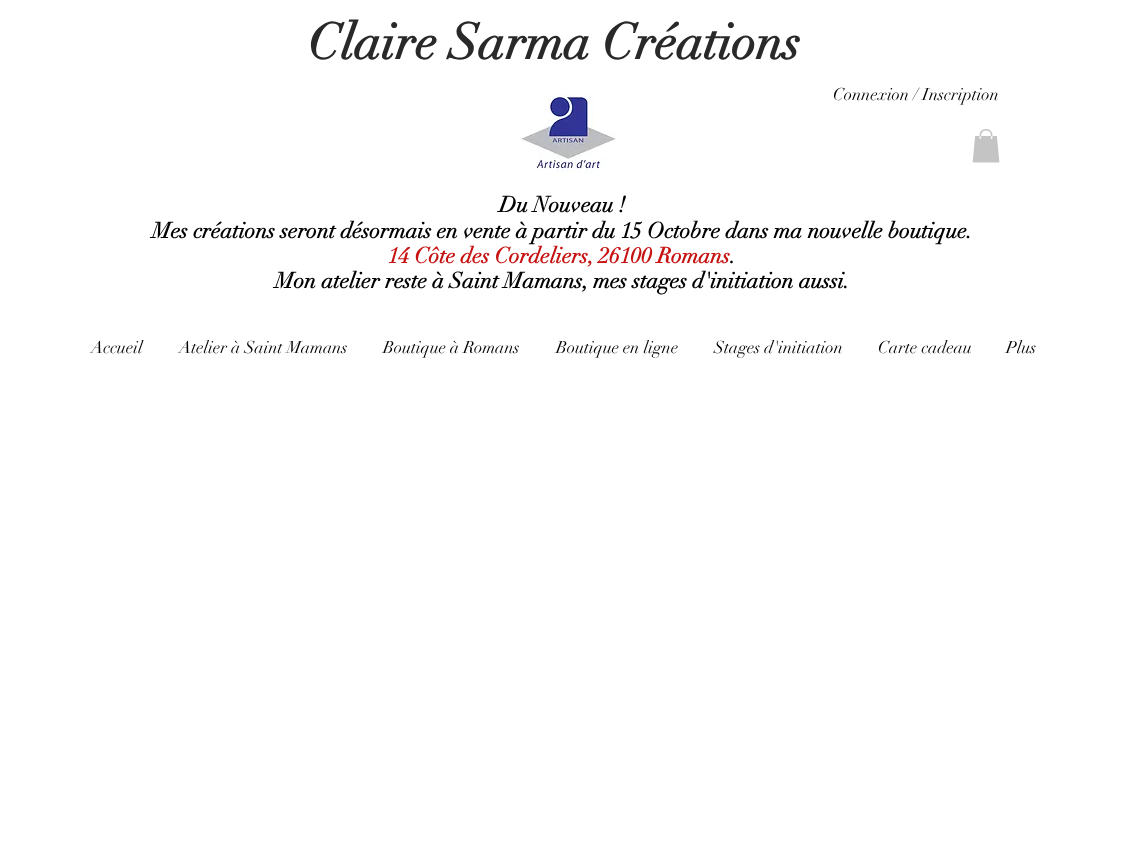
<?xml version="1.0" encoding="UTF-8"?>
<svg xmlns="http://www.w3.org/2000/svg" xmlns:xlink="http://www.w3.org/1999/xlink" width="1125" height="864">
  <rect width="100%" height="100%" fill="#ffffff" />
  <image x="521" y="94" width="95" height="80" xlink:href="image1.png" />
  <image x="972" y="129" width="28" height="34" xlink:href="image2.png" />
  <text x="308" y="59" style="font-family: didot; font-size: 50px; font-weight: bold; fill: #292929">Claire Sarma Créations</text>
  <text x="833" y="100" style="font-family: didot; font-size: 17px; fill: #000000">Connexion / Inscription</text>
  <text x="499" y="212" style="font-family: didot; font-size: 22px; font-weight: bold; fill: #000000">Du Nouveau !</text>
  <text x="152" y="238" style="font-family: didot; font-size: 22px; font-weight: bold; fill: #000000">Mes créations seront désormais en vente à partir du 15 Octobre dans ma nouvelle boutique.</text>
  <text x="388" y="263" style="font-family: didot; font-size: 22px; font-weight: bold; fill: #c71212">14 Côte des Cordeliers, 26100 Romans</text>
  <text x="730" y="263" style="font-family: didot; font-size: 22px; font-weight: bold; fill: #000000">.</text>
  <text x="275" y="288" style="font-family: didot; font-size: 22px; font-weight: bold; fill: #000000">Mon atelier reste à Saint Mamans, mes stages d'initiation aussi.</text>
  <text x="91" y="353" style="font-family: didot; font-size: 17px; fill: #000000">Accueil</text>
  <text x="179" y="353" style="font-family: didot; font-size: 17px; fill: #000000">Atelier à Saint Mamans</text>
  <text x="383" y="353" style="font-family: didot; font-size: 17px; fill: #000000">Boutique à Romans</text>
  <text x="556" y="353" style="font-family: didot; font-size: 17px; fill: #000000">Boutique en ligne</text>
  <text x="714" y="353" style="font-family: didot; font-size: 17px; fill: #000000">Stages d'initiation</text>
  <text x="878" y="353" style="font-family: didot; font-size: 17px; fill: #000000">Carte cadeau</text>
  <text x="1006" y="353" style="font-family: didot; font-size: 17px; fill: #000000">Plus</text>
</svg>
